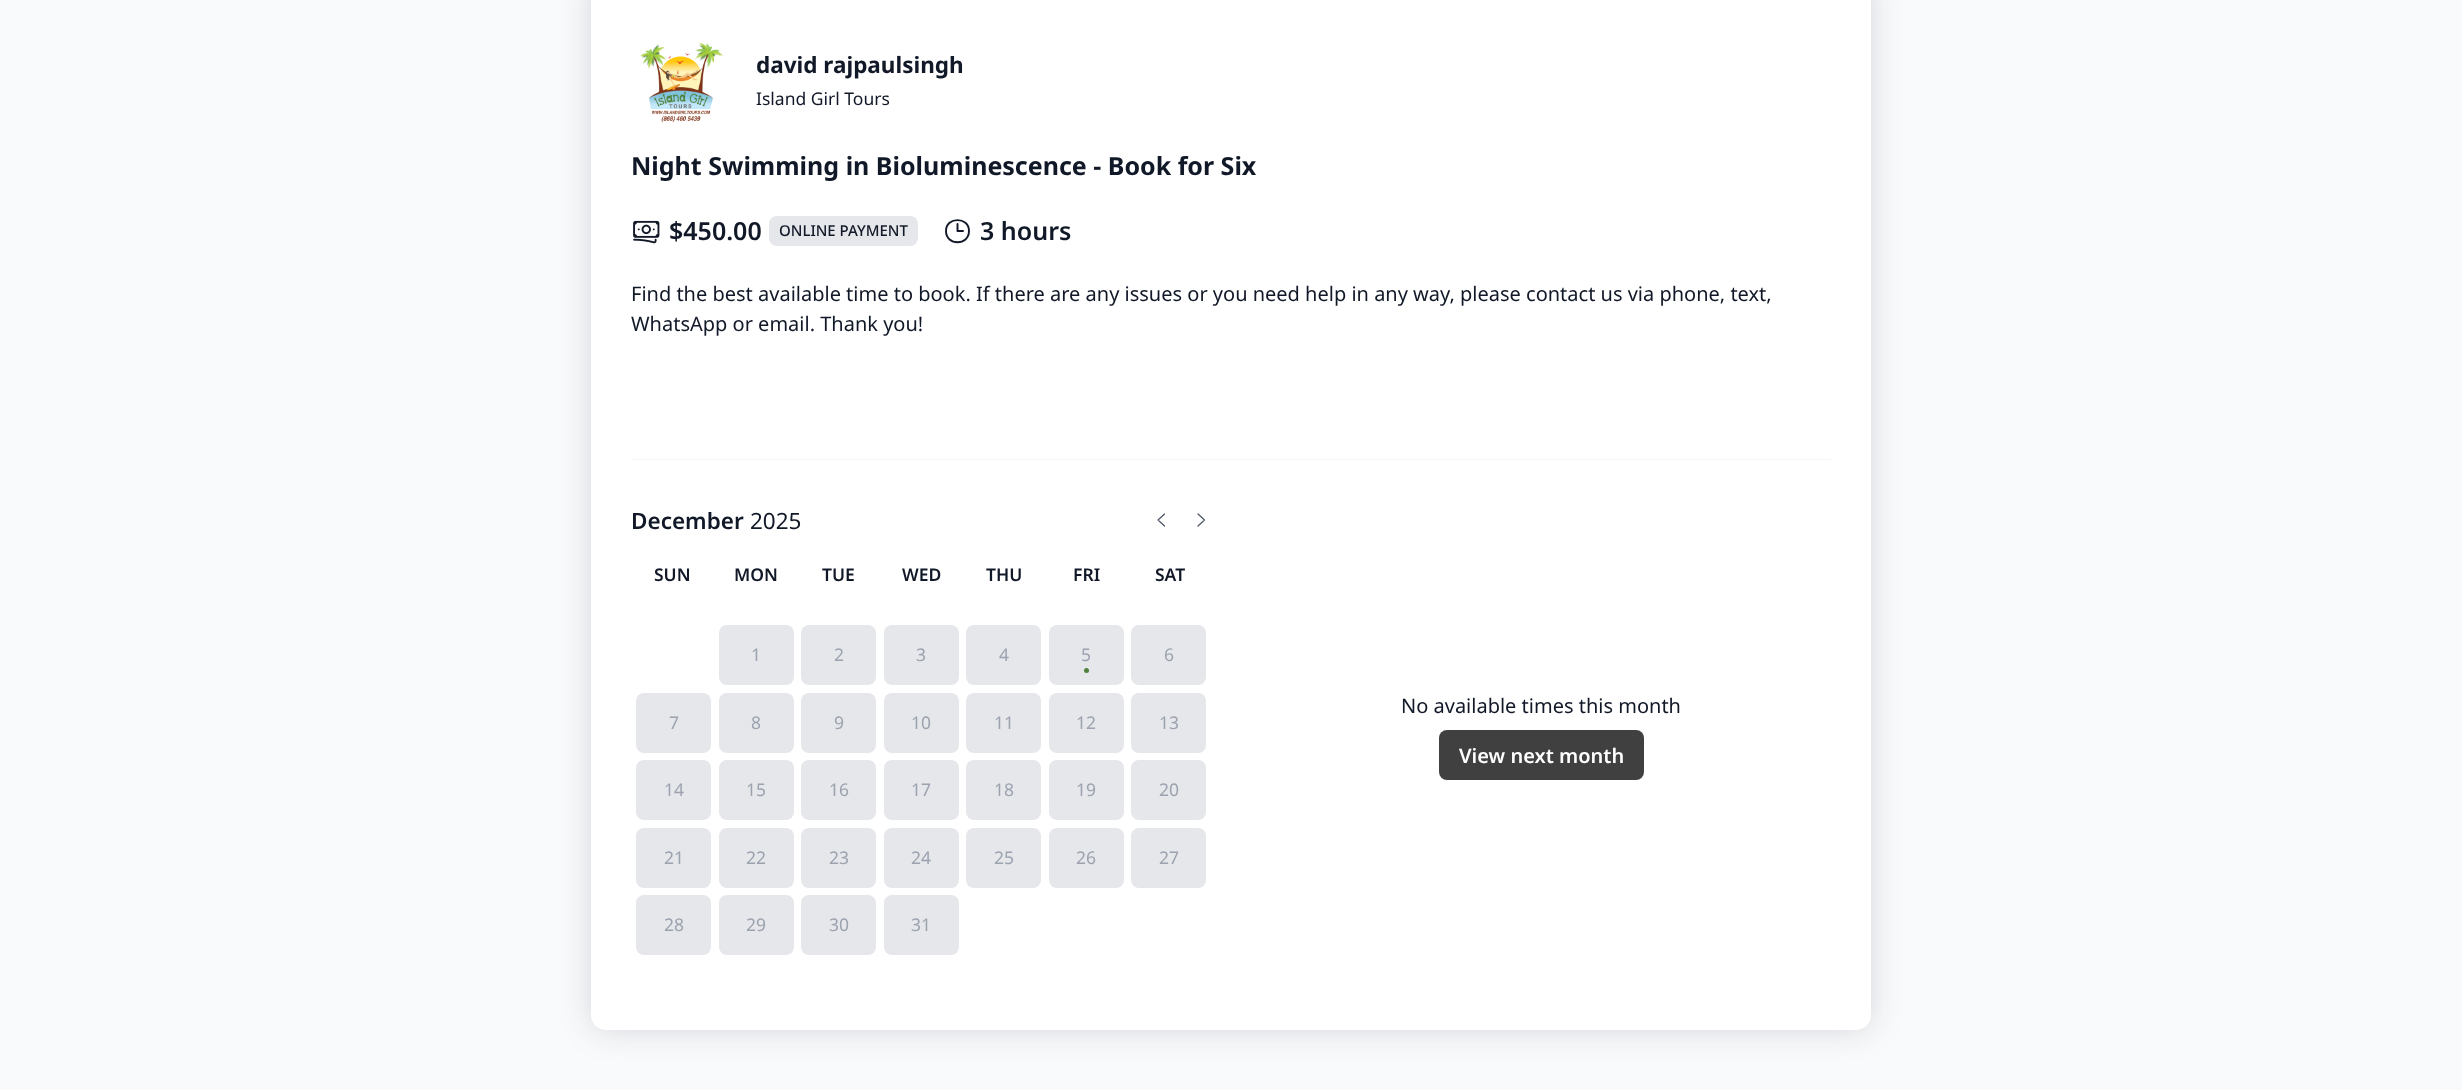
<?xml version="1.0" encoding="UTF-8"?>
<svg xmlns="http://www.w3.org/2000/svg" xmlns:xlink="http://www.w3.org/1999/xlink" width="2462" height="1090">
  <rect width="100%" height="100%" fill="#f9fafb" />
  <rect x="591" y="-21" width="1280" height="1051" rx="15" fill="#0f112d" fill-opacity="0.15" filter="blur(16px)" />
  <rect x="591" y="-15" width="1280" height="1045" rx="15" fill="#ffffff" />
  <image x="640" y="42" width="83" height="81" xlink:href="image1.png" />
  <image x="633" y="220" width="27" height="24" xlink:href="image2.png" />
  <rect x="769" y="216" width="149" height="30" rx="8" fill="#e5e7eb" />
  <path d="M 957.5 224 v 7 h 5.5 m 6 0 c 0 15 -23 15 -23 0 c 0 -14.5 23 -14.5 23 0 z" fill="none" stroke="#111827" stroke-width="1.9" stroke-linecap="round" stroke-linejoin="round" />
  <rect x="631" y="459" width="1200" height="1" fill="#f3f4f6" />
  <path d="M 1164.5 526 l -6.5 -6 l 6.5 -6 m 33.5 0 l 6.5 6 l -6.5 6" fill="none" stroke="#4b5563" stroke-width="1.2" stroke-linecap="round" stroke-linejoin="round" />
  <rect x="719" y="625" width="75" height="60" rx="8" fill="#e5e7eb" />
  <rect x="801" y="625" width="75" height="60" rx="8" fill="#e5e7eb" />
  <rect x="884" y="625" width="75" height="60" rx="8" fill="#e5e7eb" />
  <rect x="966" y="625" width="75" height="60" rx="8" fill="#e5e7eb" />
  <rect x="1049" y="625" width="75" height="60" rx="8" fill="#e5e7eb" />
  <circle cx="1086.5" cy="670.5" r="2.5" fill="#4c823c" />
  <rect x="1131" y="625" width="75" height="60" rx="8" fill="#e5e7eb" />
  <rect x="636" y="693" width="75" height="60" rx="8" fill="#e5e7eb" />
  <rect x="719" y="693" width="75" height="60" rx="8" fill="#e5e7eb" />
  <rect x="801" y="693" width="75" height="60" rx="8" fill="#e5e7eb" />
  <rect x="884" y="693" width="75" height="60" rx="8" fill="#e5e7eb" />
  <rect x="966" y="693" width="75" height="60" rx="8" fill="#e5e7eb" />
  <rect x="1049" y="693" width="75" height="60" rx="8" fill="#e5e7eb" />
  <rect x="1131" y="693" width="75" height="60" rx="8" fill="#e5e7eb" />
  <rect x="636" y="760" width="75" height="60" rx="8" fill="#e5e7eb" />
  <rect x="719" y="760" width="75" height="60" rx="8" fill="#e5e7eb" />
  <rect x="801" y="760" width="75" height="60" rx="8" fill="#e5e7eb" />
  <rect x="884" y="760" width="75" height="60" rx="8" fill="#e5e7eb" />
  <rect x="966" y="760" width="75" height="60" rx="8" fill="#e5e7eb" />
  <rect x="1049" y="760" width="75" height="60" rx="8" fill="#e5e7eb" />
  <rect x="1131" y="760" width="75" height="60" rx="8" fill="#e5e7eb" />
  <rect x="636" y="828" width="75" height="60" rx="8" fill="#e5e7eb" />
  <rect x="719" y="828" width="75" height="60" rx="8" fill="#e5e7eb" />
  <rect x="801" y="828" width="75" height="60" rx="8" fill="#e5e7eb" />
  <rect x="884" y="828" width="75" height="60" rx="8" fill="#e5e7eb" />
  <rect x="966" y="828" width="75" height="60" rx="8" fill="#e5e7eb" />
  <rect x="1049" y="828" width="75" height="60" rx="8" fill="#e5e7eb" />
  <rect x="1131" y="828" width="75" height="60" rx="8" fill="#e5e7eb" />
  <rect x="636" y="895" width="75" height="60" rx="8" fill="#e5e7eb" />
  <rect x="719" y="895" width="75" height="60" rx="8" fill="#e5e7eb" />
  <rect x="801" y="895" width="75" height="60" rx="8" fill="#e5e7eb" />
  <rect x="884" y="895" width="75" height="60" rx="8" fill="#e5e7eb" />
  <rect x="1439" y="730" width="205" height="50" rx="8" fill="#404040" />
  <text x="756" y="73" style="font-family: Noto Sans; font-size: 22.5px; font-weight: bold; fill: #111827">david rajpaulsingh</text>
  <text x="756" y="105" style="font-family: Noto Sans; font-size: 17.5px; fill: #111827">Island Girl Tours</text>
  <text x="631" y="175" style="font-family: Noto Sans; font-size: 25px; font-weight: bold; fill: #111827">Night Swimming in Bioluminescence - Book for Six</text>
  <text x="669" y="240" style="font-family: Noto Sans; font-size: 25px; font-weight: 600; fill: #111827">$450.00</text>
  <text x="779" y="236" style="font-family: Noto Sans; font-size: 15px; font-weight: 500; fill: #111827">ONLINE PAYMENT</text>
  <text x="980" y="240" style="font-family: Noto Sans; font-size: 25px; font-weight: 600; fill: #111827">3 hours</text>
  <text x="631" y="301" style="font-family: Noto Sans; font-size: 20px; fill: #111827">Find the best available time to book. If there are any issues or you need help in any way, please contact us via phone, text,</text>
  <text x="631" y="331" style="font-family: Noto Sans; font-size: 20px; fill: #111827">WhatsApp or email. Thank you!</text>
  <text x="631" y="529" style="font-family: Noto Sans; font-size: 22.5px; font-weight: 600; fill: #111827">December</text>
  <text x="750" y="529" style="font-family: Noto Sans; font-size: 22.5px; fill: #111827">2025</text>
  <text x="654" y="581" style="font-family: Noto Sans; font-size: 17.5px; font-weight: 600; fill: #111827">SUN</text>
  <text x="734" y="581" style="font-family: Noto Sans; font-size: 17.5px; font-weight: 600; fill: #111827">MON</text>
  <text x="822" y="581" style="font-family: Noto Sans; font-size: 17.5px; font-weight: 600; fill: #111827">TUE</text>
  <text x="902" y="581" style="font-family: Noto Sans; font-size: 17.5px; font-weight: 600; fill: #111827">WED</text>
  <text x="986" y="581" style="font-family: Noto Sans; font-size: 17.5px; font-weight: 600; fill: #111827">THU</text>
  <text x="1073" y="581" style="font-family: Noto Sans; font-size: 17.5px; font-weight: 600; fill: #111827">FRI</text>
  <text x="1155" y="581" style="font-family: Noto Sans; font-size: 17.5px; font-weight: 600; fill: #111827">SAT</text>
  <text x="751" y="661" style="font-family: Noto Sans; font-size: 17.5px; fill: #9ca3af">1</text>
  <text x="834" y="661" style="font-family: Noto Sans; font-size: 17.5px; fill: #9ca3af">2</text>
  <text x="916" y="661" style="font-family: Noto Sans; font-size: 17.5px; fill: #9ca3af">3</text>
  <text x="999" y="661" style="font-family: Noto Sans; font-size: 17.5px; fill: #9ca3af">4</text>
  <text x="1081" y="661" style="font-family: Noto Sans; font-size: 17.5px; fill: #9ca3af">5</text>
  <text x="1164" y="661" style="font-family: Noto Sans; font-size: 17.5px; fill: #9ca3af">6</text>
  <text x="669" y="729" style="font-family: Noto Sans; font-size: 17.5px; fill: #9ca3af">7</text>
  <text x="751" y="729" style="font-family: Noto Sans; font-size: 17.5px; fill: #9ca3af">8</text>
  <text x="834" y="729" style="font-family: Noto Sans; font-size: 17.5px; fill: #9ca3af">9</text>
  <text x="911" y="729" style="font-family: Noto Sans; font-size: 17.5px; fill: #9ca3af">10</text>
  <text x="994" y="729" style="font-family: Noto Sans; font-size: 17.5px; fill: #9ca3af">11</text>
  <text x="1076" y="729" style="font-family: Noto Sans; font-size: 17.5px; fill: #9ca3af">12</text>
  <text x="1159" y="729" style="font-family: Noto Sans; font-size: 17.5px; fill: #9ca3af">13</text>
  <text x="664" y="796" style="font-family: Noto Sans; font-size: 17.5px; fill: #9ca3af">14</text>
  <text x="746" y="796" style="font-family: Noto Sans; font-size: 17.5px; fill: #9ca3af">15</text>
  <text x="829" y="796" style="font-family: Noto Sans; font-size: 17.5px; fill: #9ca3af">16</text>
  <text x="911" y="796" style="font-family: Noto Sans; font-size: 17.5px; fill: #9ca3af">17</text>
  <text x="994" y="796" style="font-family: Noto Sans; font-size: 17.5px; fill: #9ca3af">18</text>
  <text x="1076" y="796" style="font-family: Noto Sans; font-size: 17.5px; fill: #9ca3af">19</text>
  <text x="1159" y="796" style="font-family: Noto Sans; font-size: 17.5px; fill: #9ca3af">20</text>
  <text x="664" y="864" style="font-family: Noto Sans; font-size: 17.5px; fill: #9ca3af">21</text>
  <text x="746" y="864" style="font-family: Noto Sans; font-size: 17.5px; fill: #9ca3af">22</text>
  <text x="829" y="864" style="font-family: Noto Sans; font-size: 17.5px; fill: #9ca3af">23</text>
  <text x="911" y="864" style="font-family: Noto Sans; font-size: 17.5px; fill: #9ca3af">24</text>
  <text x="994" y="864" style="font-family: Noto Sans; font-size: 17.5px; fill: #9ca3af">25</text>
  <text x="1076" y="864" style="font-family: Noto Sans; font-size: 17.5px; fill: #9ca3af">26</text>
  <text x="1159" y="864" style="font-family: Noto Sans; font-size: 17.5px; fill: #9ca3af">27</text>
  <text x="664" y="931" style="font-family: Noto Sans; font-size: 17.5px; fill: #9ca3af">28</text>
  <text x="746" y="931" style="font-family: Noto Sans; font-size: 17.5px; fill: #9ca3af">29</text>
  <text x="829" y="931" style="font-family: Noto Sans; font-size: 17.5px; fill: #9ca3af">30</text>
  <text x="911" y="931" style="font-family: Noto Sans; font-size: 17.5px; fill: #9ca3af">31</text>
  <text x="1401" y="713" style="font-family: Noto Sans; font-size: 20px; fill: #111827">No available times this month</text>
  <text x="1459" y="763" style="font-family: Noto Sans; font-size: 20px; font-weight: 600; fill: #ffffff">View next month</text>
</svg>
